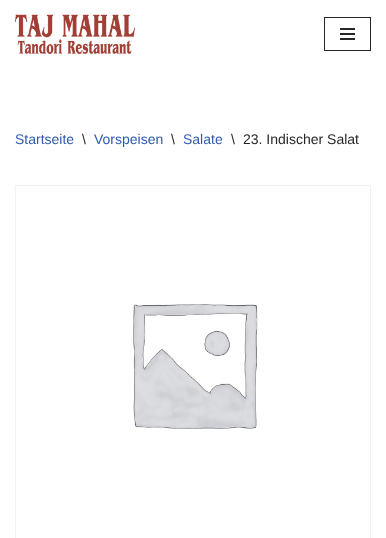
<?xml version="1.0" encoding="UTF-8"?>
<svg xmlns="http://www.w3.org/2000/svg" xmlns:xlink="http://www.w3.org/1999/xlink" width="386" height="538">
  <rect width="100%" height="100%" fill="#ffffff" />
  <image x="15" y="14" width="120" height="40" xlink:href="image1.png" />
  <rect x="324.5" y="17.5" width="46" height="33" fill="none" stroke="#272626" />
  <rect x="340" y="28" width="15" height="2" fill="#272626" />
  <rect x="340" y="33" width="15" height="2" fill="#272626" />
  <rect x="340" y="38" width="15" height="2" fill="#272626" />
  <rect x="15.5" y="185.5" width="355" height="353" fill="none" stroke="#f2f2f2" />
  <image x="133" y="304" width="125" height="125" xlink:href="image2.png" />
  <text x="15" y="144" style="font-family: Liberation Sans; font-size: 14px; fill: #2f5aae">Startseite</text>
  <text x="82" y="144" style="font-family: Liberation Sans; font-size: 14px; fill: #272626">\</text>
  <text x="94" y="144" style="font-family: Liberation Sans; font-size: 14px; fill: #2f5aae">Vorspeisen</text>
  <text x="171" y="144" style="font-family: Liberation Sans; font-size: 14px; fill: #272626">\</text>
  <text x="183" y="144" style="font-family: Liberation Sans; font-size: 14px; fill: #2f5aae">Salate</text>
  <text x="231" y="144" style="font-family: Liberation Sans; font-size: 14px; fill: #272626">\</text>
  <text x="243" y="144" style="font-family: Liberation Sans; font-size: 14px; fill: #272626">23. Indischer Salat</text>
</svg>
